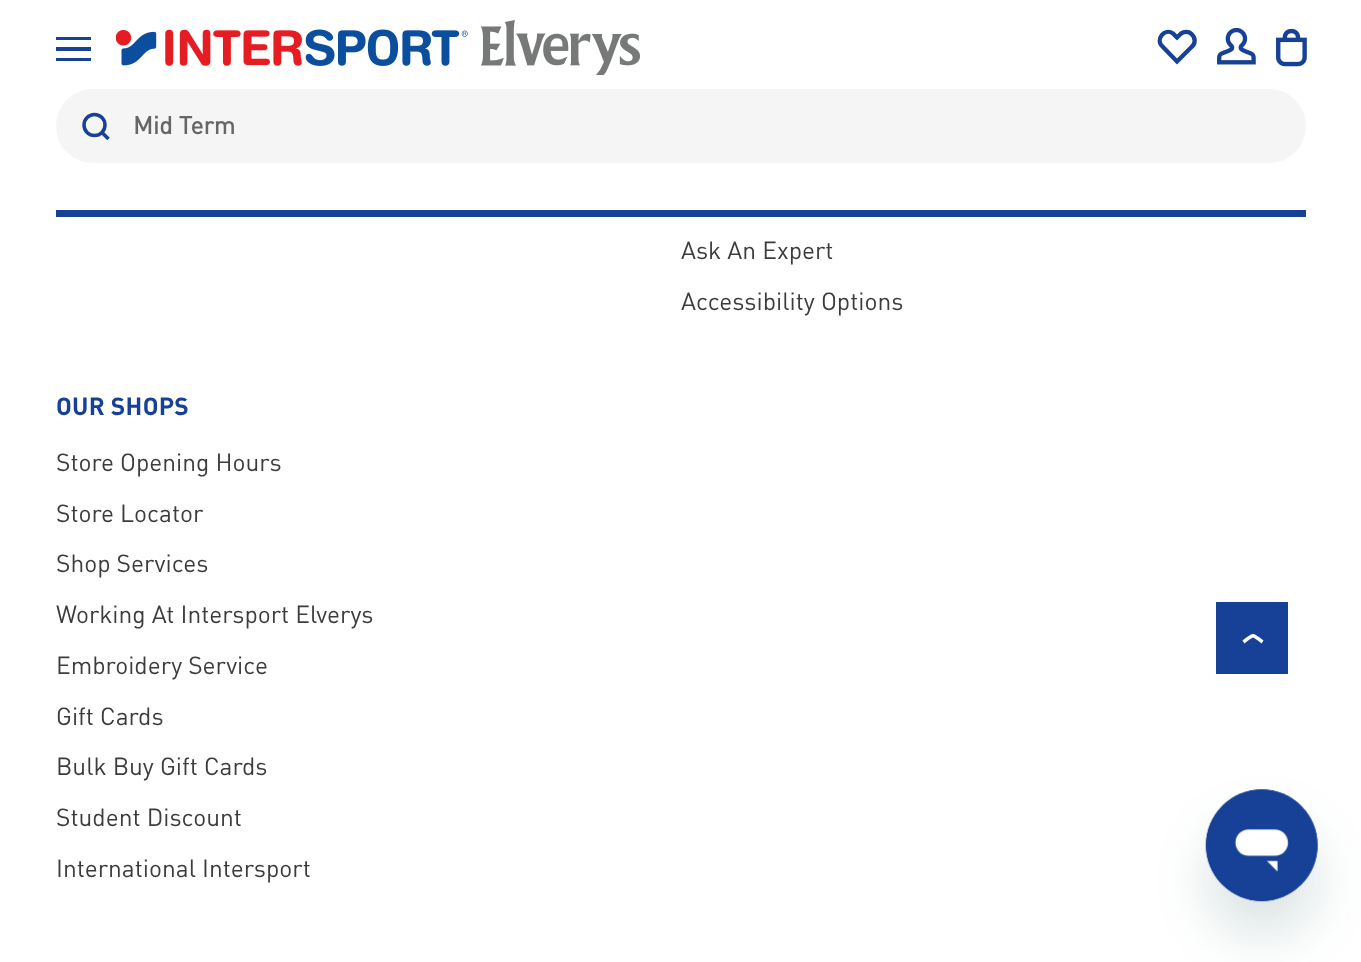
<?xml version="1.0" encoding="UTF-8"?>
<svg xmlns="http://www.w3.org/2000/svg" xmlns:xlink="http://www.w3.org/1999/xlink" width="1361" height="962">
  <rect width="100%" height="100%" fill="#ffffff" />
  <rect x="56" y="210" width="1250" height="7" fill="#164196" />
  <rect x="56" y="37" width="35" height="3" fill="#164196" />
  <rect x="56" y="47" width="35" height="4" fill="#164196" />
  <rect x="56" y="58" width="35" height="3" fill="#164196" />
  <image x="116" y="20" width="525" height="55" xlink:href="image1.png" />
  <path d="M 1162.5 46.5 l 14.5 15 l 15 -15 c 3.5 -3 3.5 -8.5 0 -12 c -3 -3.5 -8.5 -3.5 -12 0 l -3 3 l -4 -4 c -8.5 -6 -18 6 -10.5 13 z" fill="none" stroke="#164196" stroke-width="4.3" />
  <image x="1217" y="27" width="39" height="38" xlink:href="image2.png" />
  <image x="1276" y="28" width="31" height="39" xlink:href="image3.png" />
  <rect x="56" y="89" width="1250" height="74" rx="37" fill="#f5f5f5" />
  <circle cx="94.5" cy="125" r="10.5" fill="none" stroke="#164196" stroke-width="3.5" />
  <path d="M 101.5 132 l 7 7" fill="none" stroke="#164196" stroke-width="3.5" />
  <rect x="1216" y="602" width="72" height="72" fill="#164196" />
  <path d="M 1243.5 642 c 11.5 -8.5 7.5 -8.5 19 0" fill="none" stroke="#ffffff" stroke-width="3.5" />
  <rect x="1206" y="824" width="112" height="112" rx="56" fill="#17494d" fill-opacity="0.15" filter="blur(26px)" />
  <image x="1205" y="789" width="113" height="113" xlink:href="image4.png" />
  <text x="133" y="134" style="font-family: 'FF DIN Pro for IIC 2'; font-size: 24.5px; font-weight: bold; fill: #666666">Mid Term</text>
  <text x="681" y="259" style="font-family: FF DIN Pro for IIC; font-size: 24.5px; fill: #3c3c3b">Ask An Expert</text>
  <text x="681" y="310" style="font-family: FF DIN Pro for IIC; font-size: 24.5px; fill: #3c3c3b">Accessibility Options</text>
  <text x="56" y="415" style="font-family: FF DIN Pro for IIC; font-size: 24.5px; font-weight: bold; letter-spacing: 0.25px; fill: #164196">OUR SHOPS</text>
  <text x="56" y="471" style="font-family: FF DIN Pro for IIC; font-size: 24.5px; fill: #3c3c3b">Store Opening Hours</text>
  <text x="56" y="522" style="font-family: FF DIN Pro for IIC; font-size: 24.5px; fill: #3c3c3b">Store Locator</text>
  <text x="56" y="572" style="font-family: FF DIN Pro for IIC; font-size: 24.5px; fill: #3c3c3b">Shop Services</text>
  <text x="56" y="623" style="font-family: FF DIN Pro for IIC; font-size: 24.5px; fill: #3c3c3b">Working At Intersport Elverys</text>
  <text x="56" y="674" style="font-family: FF DIN Pro for IIC; font-size: 24.5px; fill: #3c3c3b">Embroidery Service</text>
  <text x="56" y="725" style="font-family: FF DIN Pro for IIC; font-size: 24.5px; fill: #3c3c3b">Gift Cards</text>
  <text x="56" y="775" style="font-family: FF DIN Pro for IIC; font-size: 24.5px; fill: #3c3c3b">Bulk Buy Gift Cards</text>
  <text x="56" y="826" style="font-family: FF DIN Pro for IIC; font-size: 24.5px; fill: #3c3c3b">Student Discount</text>
  <text x="56" y="877" style="font-family: FF DIN Pro for IIC; font-size: 24.5px; fill: #3c3c3b">International Intersport</text>
</svg>
